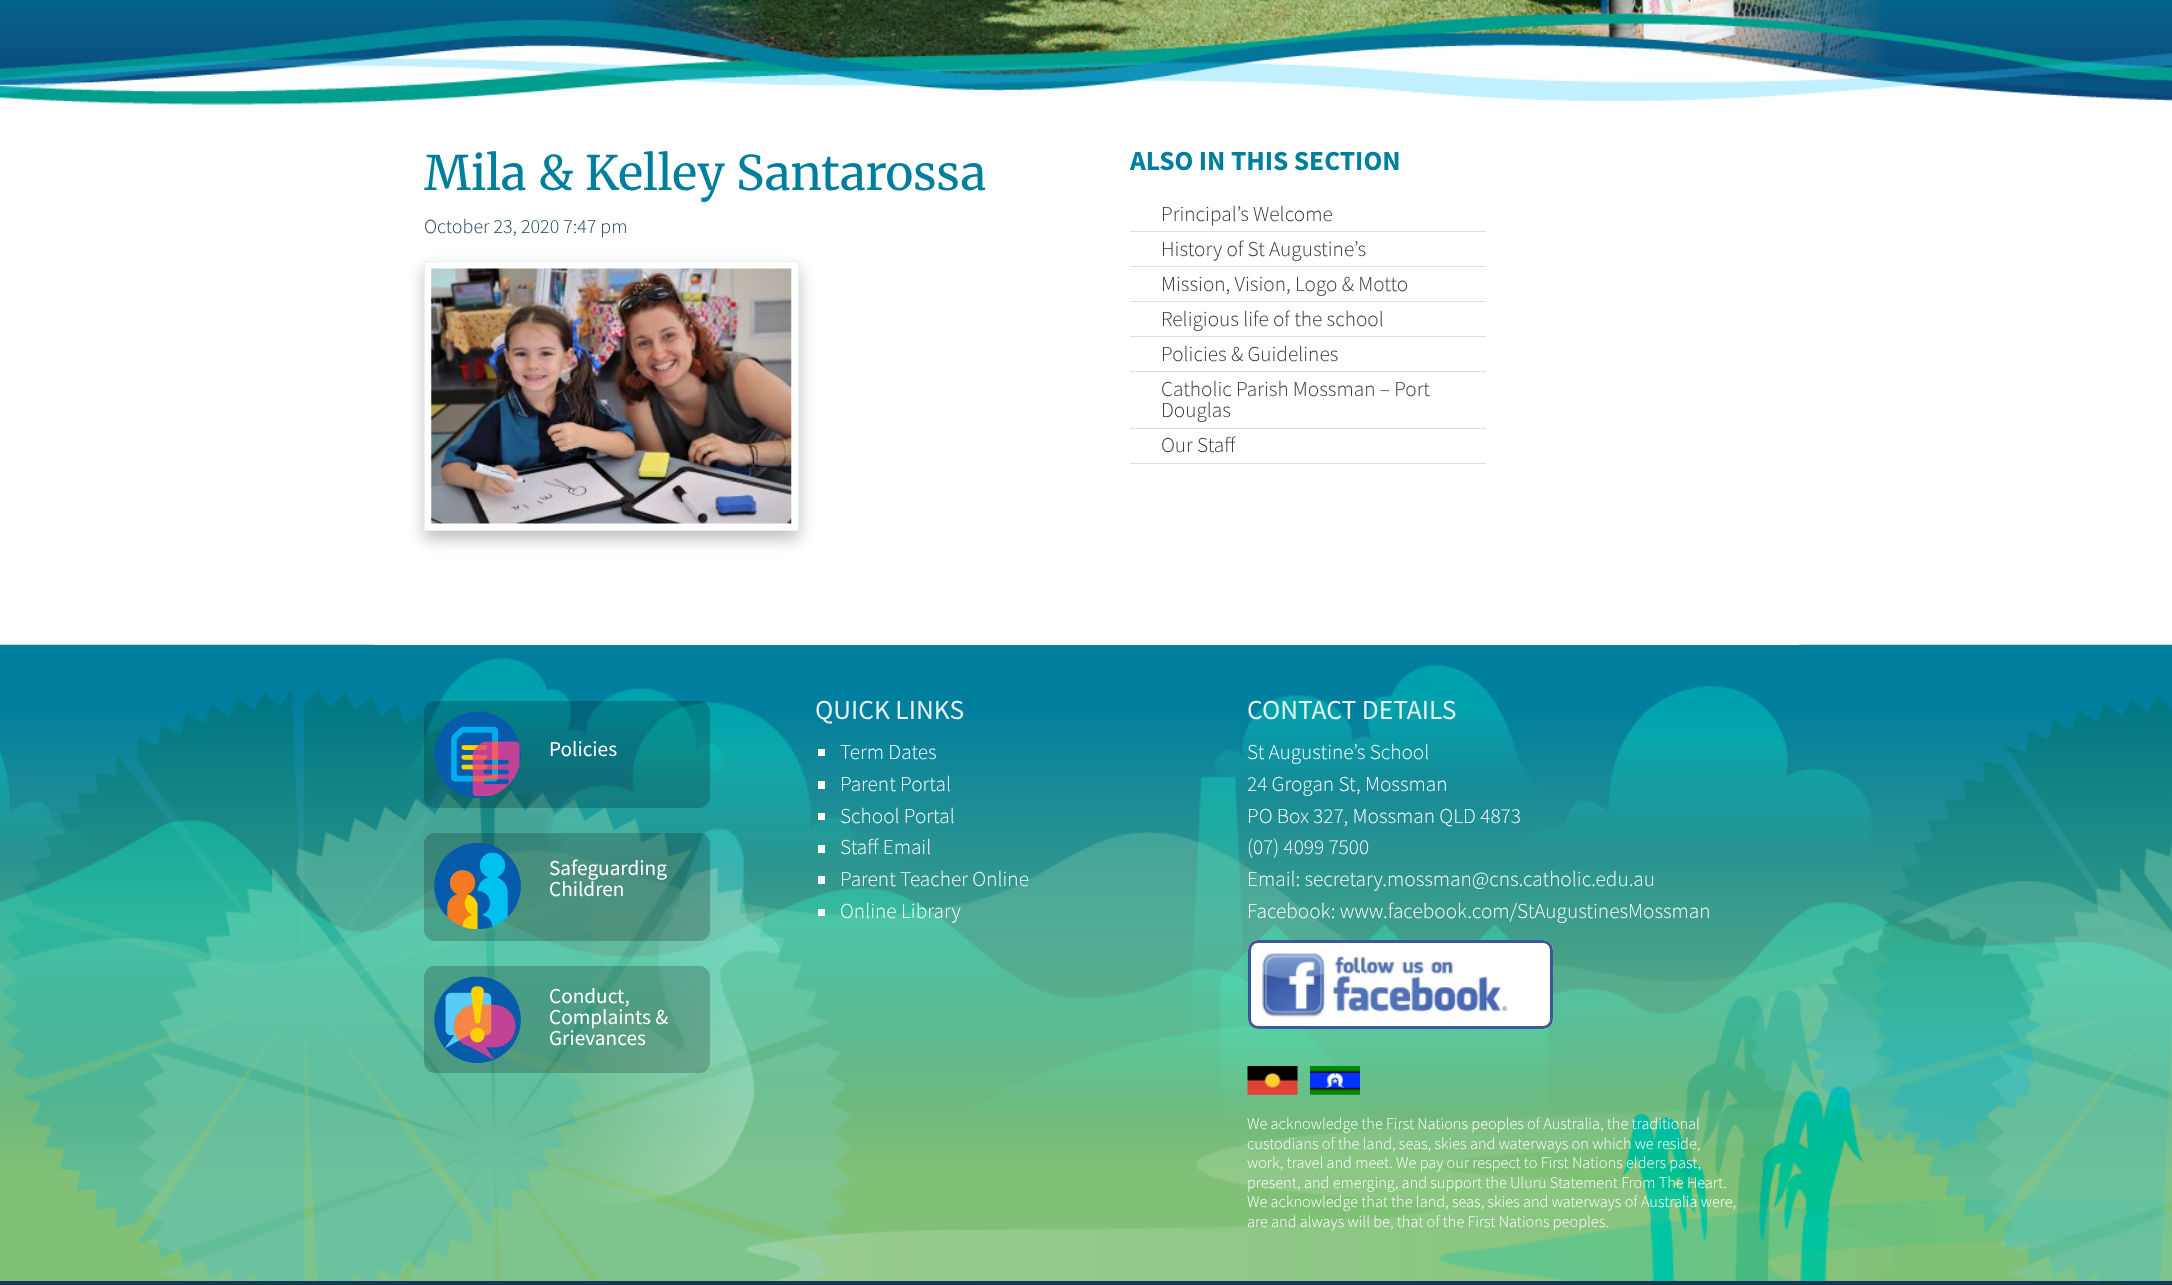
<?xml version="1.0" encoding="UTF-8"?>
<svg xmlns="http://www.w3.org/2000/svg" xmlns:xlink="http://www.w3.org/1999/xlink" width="2172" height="1285">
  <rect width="100%" height="100%" fill="#ffffff" />
  <image x="0" y="0" width="2172" height="106" xlink:href="image1.png" />
  <image x="0" y="644" width="2172" height="637" xlink:href="image3.png" />
  <rect x="374" y="644" width="1425" height="1" fill="#ffffff" />
  <rect x="424" y="269" width="375" height="270" fill="#000000" fill-opacity="0.25" filter="blur(8px)" />
  <rect x="424.5" y="261.5" width="374" height="269" fill="#ffffff" stroke="#e5f1f3" />
  <image x="431" y="268" width="361" height="256" xlink:href="image2.png" />
  <rect x="1130" y="231" width="356" height="1" fill="#dddddd" />
  <rect x="1130" y="266" width="356" height="1" fill="#dddddd" />
  <rect x="1130" y="301" width="356" height="1" fill="#dddddd" />
  <rect x="1130" y="336" width="356" height="1" fill="#dddddd" />
  <rect x="1130" y="371" width="356" height="1" fill="#dddddd" />
  <rect x="1130" y="428" width="356" height="1" fill="#dddddd" />
  <rect x="1130" y="463" width="356" height="1" fill="#dddddd" />
  <rect x="424" y="701" width="286" height="107" rx="11" fill="#000000" fill-opacity="0.2" />
  <image x="434" y="711" width="87" height="87" xlink:href="image4.png" />
  <rect x="424" y="833" width="286" height="108" rx="11" fill="#000000" fill-opacity="0.2" />
  <image x="434" y="843" width="87" height="86" xlink:href="image5.png" />
  <rect x="424" y="966" width="286" height="107" rx="11" fill="#000000" fill-opacity="0.2" />
  <image x="434" y="976" width="87" height="87" xlink:href="image6.png" />
  <rect x="818" y="749" width="7" height="7" fill="#ffffff" />
  <rect x="818" y="781" width="7" height="8" fill="#ffffff" />
  <rect x="818" y="813" width="7" height="7" fill="#ffffff" />
  <rect x="818" y="845" width="7" height="8" fill="#ffffff" />
  <rect x="818" y="876" width="7" height="8" fill="#ffffff" />
  <rect x="818" y="909" width="7" height="7" fill="#ffffff" />
  <rect x="1248" y="940" width="305" height="89" rx="10" fill="#ffffff" />
  <image x="1261" y="952" width="248" height="65" xlink:href="image7.png" />
  <rect x="1249.5" y="941.5" width="302" height="86" rx="8.5" fill="none" stroke="#3b5998" stroke-width="3" />
  <image x="1247" y="1066" width="51" height="29" xlink:href="image8.png" />
  <image x="1310" y="1066" width="50" height="29" xlink:href="image9.png" />
  <rect y="1281" width="2172" height="4" fill="#133957" />
  <text x="424" y="190" style="font-family: Merriweather; font-size: 47.5px; fill: #007e9e">Mila &amp; Kelley Santarossa</text>
  <text x="424" y="233" style="font-family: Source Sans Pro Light; font-size: 20px; font-weight: 300; fill: #133957">October 23, 2020 7:47 pm</text>
  <text x="1130" y="170" style="font-family: Source Sans Pro; font-size: 27.5px; font-weight: bold; fill: #007e9e">ALSO IN THIS SECTION</text>
  <text x="1161" y="221" style="font-family: Source Sans Pro Light; font-size: 21.25px; font-weight: 300; fill: #333333">Principal’s Welcome</text>
  <text x="1161" y="256" style="font-family: Source Sans Pro Light; font-size: 21.25px; font-weight: 300; fill: #333333">History of St Augustine’s</text>
  <text x="1161" y="291" style="font-family: Source Sans Pro Light; font-size: 21.25px; font-weight: 300; fill: #333333">Mission, Vision, Logo &amp; Motto</text>
  <text x="1161" y="326" style="font-family: Source Sans Pro Light; font-size: 21.25px; font-weight: 300; fill: #333333">Religious life of the school</text>
  <text x="1161" y="361" style="font-family: Source Sans Pro Light; font-size: 21.25px; font-weight: 300; fill: #333333">Policies &amp; Guidelines</text>
  <text x="1161" y="396" style="font-family: Source Sans Pro Light; font-size: 21.25px; font-weight: 300; fill: #333333">Catholic Parish Mossman – Port</text>
  <text x="1161" y="417" style="font-family: Source Sans Pro Light; font-size: 21.25px; font-weight: 300; fill: #333333">Douglas</text>
  <text x="1161" y="452" style="font-family: Source Sans Pro Light; font-size: 21.25px; font-weight: 300; fill: #333333">Our Staff</text>
  <text x="549" y="756" style="font-family: Source Sans Pro; font-size: 21.25px; fill: #ffffff">Policies</text>
  <text x="549" y="875" style="font-family: Source Sans Pro; font-size: 21.25px; fill: #ffffff">Safeguarding</text>
  <text x="549" y="896" style="font-family: Source Sans Pro; font-size: 21.25px; fill: #ffffff">Children</text>
  <text x="549" y="1003" style="font-family: Source Sans Pro; font-size: 21.25px; fill: #ffffff">Conduct,</text>
  <text x="549" y="1024" style="font-family: Source Sans Pro; font-size: 21.25px; fill: #ffffff">Complaints &amp;</text>
  <text x="549" y="1045" style="font-family: Source Sans Pro; font-size: 21.25px; fill: #ffffff">Grievances</text>
  <text x="815" y="719" style="font-family: Source Sans Pro; font-size: 27.5px; fill: #e5f1f3">QUICK LINKS</text>
  <text x="840" y="759" style="font-family: Source Sans Pro Light; font-size: 21.25px; font-weight: 300; fill: #ffffff">Term Dates</text>
  <text x="840" y="791" style="font-family: Source Sans Pro Light; font-size: 21.25px; font-weight: 300; fill: #ffffff">Parent Portal</text>
  <text x="840" y="823" style="font-family: Source Sans Pro Light; font-size: 21.25px; font-weight: 300; fill: #ffffff">School Portal</text>
  <text x="840" y="854" style="font-family: Source Sans Pro Light; font-size: 21.25px; font-weight: 300; fill: #ffffff">Staff Email</text>
  <text x="840" y="886" style="font-family: Source Sans Pro Light; font-size: 21.25px; font-weight: 300; fill: #ffffff">Parent Teacher Online</text>
  <text x="840" y="918" style="font-family: Source Sans Pro Light; font-size: 21.25px; font-weight: 300; fill: #ffffff">Online Library</text>
  <text x="1247" y="719" style="font-family: Source Sans Pro; font-size: 27.5px; fill: #e5f1f3">CONTACT DETAILS</text>
  <text x="1247" y="759" style="font-family: Source Sans Pro Light; font-size: 21.25px; font-weight: 300; fill: #ffffff">St Augustine’s School</text>
  <text x="1247" y="791" style="font-family: Source Sans Pro Light; font-size: 21.25px; font-weight: 300; fill: #ffffff">24 Grogan St, Mossman</text>
  <text x="1247" y="823" style="font-family: Source Sans Pro Light; font-size: 21.25px; font-weight: 300; fill: #ffffff">PO Box 327, Mossman QLD 4873</text>
  <text x="1247" y="854" style="font-family: Source Sans Pro Light; font-size: 21.25px; font-weight: 300; fill: #ffffff">(07) 4099 7500</text>
  <text x="1247" y="886" style="font-family: Source Sans Pro Light; font-size: 21.25px; font-weight: 300; fill: #ffffff">Email: secretary.mossman@cns.catholic.edu.au</text>
  <text x="1247" y="918" style="font-family: Source Sans Pro Light; font-size: 21.25px; font-weight: 300; fill: #ffffff">Facebook: www.facebook.com/StAugustinesMossman</text>
  <text x="1247" y="1129" style="font-family: Source Sans Pro Light; font-size: 16.25px; font-weight: 300; fill: #ffffff">We acknowledge the First Nations peoples of Australia, the traditional</text>
  <text x="1247" y="1149" style="font-family: Source Sans Pro Light; font-size: 16.25px; font-weight: 300; fill: #ffffff">custodians of the land, seas, skies and waterways on which we reside,</text>
  <text x="1247" y="1168" style="font-family: Source Sans Pro Light; font-size: 16.25px; font-weight: 300; fill: #ffffff">work, travel and meet. We pay our respect to First Nations elders past,</text>
  <text x="1247" y="1188" style="font-family: Source Sans Pro Light; font-size: 16.25px; font-weight: 300; fill: #ffffff">present, and emerging, and support the Uluru Statement From The Heart.</text>
  <text x="1247" y="1207" style="font-family: Source Sans Pro Light; font-size: 16.25px; font-weight: 300; fill: #ffffff">We acknowledge that the land, seas, skies and waterways of Australia were,</text>
  <text x="1247" y="1227" style="font-family: Source Sans Pro Light; font-size: 16.25px; font-weight: 300; fill: #ffffff">are and always will be, that of the First Nations peoples.</text>
</svg>
